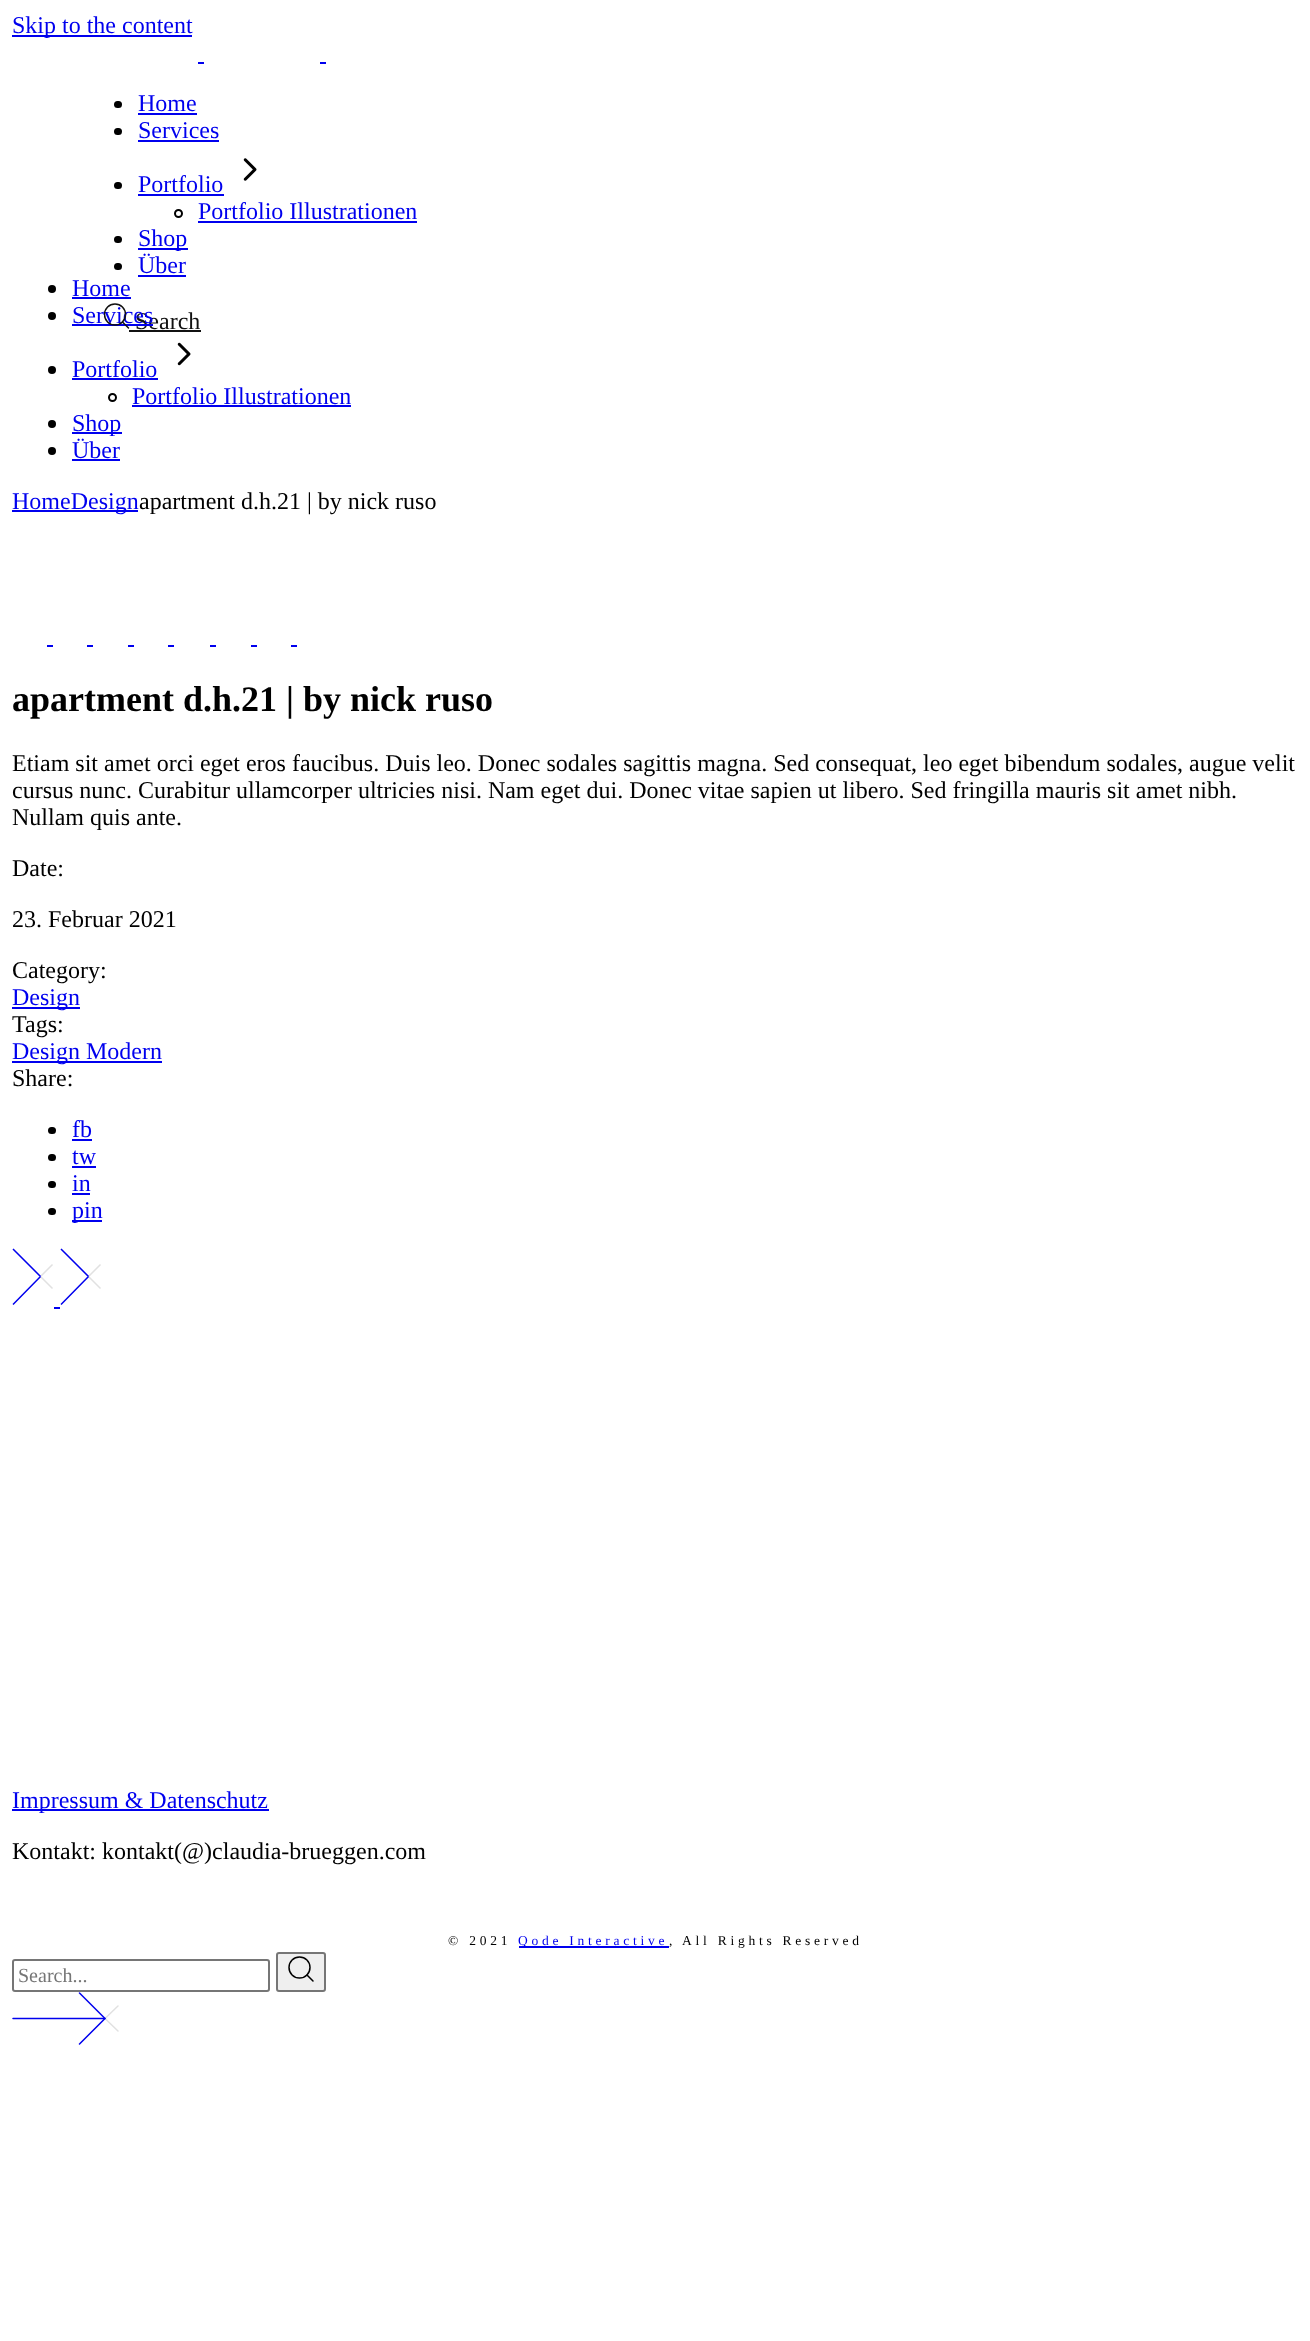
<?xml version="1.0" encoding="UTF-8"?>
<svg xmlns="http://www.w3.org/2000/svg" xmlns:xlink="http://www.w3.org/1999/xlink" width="1310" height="2341">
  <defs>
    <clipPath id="clip1"><rect x="104" y="303" width="25" height="26" /></clipPath>
  </defs>
  <rect width="100%" height="100%" fill="#ffffff" />
  <rect x="12" y="35" width="180" height="2" fill="#0000ee" />
  <rect x="198" y="62" width="6" height="2" fill="#0000ee" />
  <rect x="320" y="62" width="6" height="2" fill="#0000ee" />
  <rect x="114" y="101" width="8" height="7" rx="3.5" fill="#000000" />
  <rect x="138" y="113" width="59" height="2" fill="#0000ee" />
  <rect x="114" y="128" width="8" height="7" rx="3.5" fill="#000000" />
  <rect x="138" y="140" width="81" height="2" fill="#0000ee" />
  <image x="243" y="158" width="14" height="23" xlink:href="image1.png" />
  <rect x="114" y="182" width="8" height="7" rx="3.5" fill="#000000" />
  <rect x="138" y="194" width="86" height="2" fill="#0000ee" />
  <circle cx="178.5" cy="213.5" r="3.5" fill="none" stroke="#000000" stroke-width="2" />
  <rect x="198" y="221" width="219" height="2" fill="#0000ee" />
  <rect x="114" y="236" width="8" height="7" rx="3.5" fill="#000000" />
  <rect x="138" y="248" width="50" height="2" fill="#0000ee" />
  <rect x="114" y="263" width="8" height="7" rx="3.5" fill="#000000" />
  <rect x="138" y="275" width="48" height="2" fill="#0000ee" />
  <rect x="129" y="330" width="72" height="2" fill="#111111" />
  <circle cx="52" cy="289" r="4" fill="#000000" />
  <rect x="72" y="297" width="59" height="2" fill="#0000ee" />
  <circle cx="52" cy="316" r="4" fill="#000000" />
  <image x="177" y="342" width="14" height="24" xlink:href="image2.png" />
  <circle cx="52" cy="370" r="4" fill="#000000" />
  <rect x="72" y="378" width="86" height="2" fill="#0000ee" />
  <circle cx="112.5" cy="397.5" r="3.5" fill="none" stroke="#000000" stroke-width="2" />
  <rect x="132" y="405" width="219" height="2" fill="#0000ee" />
  <circle cx="52" cy="424" r="4" fill="#000000" />
  <rect x="72" y="432" width="50" height="2" fill="#0000ee" />
  <circle cx="52" cy="451" r="4" fill="#000000" />
  <rect x="72" y="459" width="48" height="2" fill="#0000ee" />
  <rect x="12" y="510" width="126" height="2" fill="#0000ee" />
  <rect x="47" y="645" width="6" height="2" fill="#0000ee" />
  <rect x="87" y="645" width="6" height="2" fill="#0000ee" />
  <rect x="128" y="645" width="6" height="2" fill="#0000ee" />
  <rect x="168" y="645" width="6" height="2" fill="#0000ee" />
  <rect x="210" y="645" width="6" height="2" fill="#0000ee" />
  <rect x="251" y="645" width="6" height="2" fill="#0000ee" />
  <rect x="291" y="645" width="6" height="2" fill="#0000ee" />
  <rect x="12" y="1007" width="68" height="2" fill="#0000ee" />
  <rect x="12" y="1061" width="150" height="2" fill="#0000ee" />
  <rect x="48" y="1127" width="8" height="7" rx="3.5" fill="#000000" />
  <rect x="72" y="1139" width="20" height="2" fill="#0000ee" />
  <rect x="48" y="1154" width="8" height="7" rx="3.5" fill="#000000" />
  <rect x="72" y="1166" width="24" height="2" fill="#0000ee" />
  <rect x="48" y="1181" width="8" height="7" rx="3.5" fill="#000000" />
  <rect x="72" y="1193" width="18" height="2" fill="#0000ee" />
  <rect x="48" y="1208" width="8" height="7" rx="3.5" fill="#000000" />
  <rect x="72" y="1220" width="30" height="2" fill="#0000ee" />
  <path d="M 52.5 1288.5 l -12 -12 m 12 -12 l -12 12" fill="none" stroke="#e1e1e1" stroke-width="1.5" />
  <path d="M 13 1249 l 27.5 27.5 m -27.5 28 l 27.5 -28" fill="none" stroke="#0000ee" stroke-width="1.5" />
  <path d="M 100.5 1288.5 l -12 -12 m 12 -12 l -12 12" fill="none" stroke="#e1e1e1" stroke-width="1.5" />
  <path d="M 61 1249 l 27.5 27.5 m -27.5 28 l 27.5 -28" fill="none" stroke="#0000ee" stroke-width="1.5" />
  <rect x="54" y="1307" width="6" height="2" fill="#0000ee" />
  <rect x="12" y="1809" width="257" height="2" fill="#0000ee" />
  <rect x="519" y="1946" width="150" height="2" fill="#0000ee" />
  <rect x="13" y="1960" width="256" height="31" rx="2" fill="none" stroke="#767676" stroke-width="2" />
  <rect x="277" y="1953" width="48" height="38" rx="2" fill="#efefef" stroke="#767676" stroke-width="2" />
  <circle cx="299.5" cy="1967.5" r="10.5" fill="none" stroke="#000000" stroke-width="1.5" />
  <path d="M 313 1981 l -6 -6" fill="none" stroke="#000000" stroke-width="1.5" stroke-linecap="round" stroke-linejoin="round" />
  <path d="M 118 2031 l -13 -12.5 m 13 -12.5 l -13 12.5" fill="none" stroke="#e1e1e1" stroke-width="1.5" stroke-linecap="round" stroke-linejoin="round" />
  <path d="M 79.5 1993 l 25.5 25.5 m -25.5 25.5 l 25.5 -25.5" fill="none" stroke="#0000ee" stroke-width="1.5" stroke-linecap="round" stroke-linejoin="round" />
  <path d="M 13 2018.5 h 92" fill="none" stroke="#0000ee" stroke-width="1.5" stroke-linecap="round" stroke-linejoin="round" />
  <text x="12" y="33" style="font-family: Liberation Serif; font-size: 24px; fill: #0000ee">Skip to the content</text>
  <text x="138" y="111" style="font-family: Liberation Serif; font-size: 24px; fill: #0000ee">Home</text>
  <text x="138" y="138" style="font-family: Liberation Serif; font-size: 24px; fill: #0000ee">Services</text>
  <text x="138" y="192" style="font-family: Liberation Serif; font-size: 24px; fill: #0000ee">Portfolio</text>
  <text x="198" y="219" style="font-family: Liberation Serif; font-size: 24px; fill: #0000ee">Portfolio Illustrationen</text>
  <text x="138" y="246" style="font-family: Liberation Serif; font-size: 24px; fill: #0000ee">Shop</text>
  <text x="138" y="273" style="font-family: Liberation Serif; font-size: 24px; fill: #0000ee">Über</text>
  <text x="135" y="329" style="font-family: Liberation Serif; font-size: 24px; fill: #111111">Search</text>
  <text x="72" y="296" style="font-family: Liberation Serif; font-size: 24px; fill: #0000ee">Home</text>
  <text x="72" y="323" style="font-family: Liberation Serif; font-size: 24px; fill: #0000ee">Services</text>
  <rect x="72" y="324" width="81" height="2" fill="#0000ee" />
  <g clip-path="url(#clip1)">
    <circle cx="115" cy="314.5" r="10.5" fill="none" stroke="#111111" stroke-width="1.5" />
  </g>
  <path d="M 128.5 328 l -6 -6" fill="none" stroke="#111111" stroke-width="1.5" stroke-linecap="round" stroke-linejoin="round" />
  <text x="72" y="377" style="font-family: Liberation Serif; font-size: 24px; fill: #0000ee">Portfolio</text>
  <text x="132" y="404" style="font-family: Liberation Serif; font-size: 24px; fill: #0000ee">Portfolio Illustrationen</text>
  <text x="72" y="431" style="font-family: Liberation Serif; font-size: 24px; fill: #0000ee">Shop</text>
  <text x="72" y="458" style="font-family: Liberation Serif; font-size: 24px; fill: #0000ee">Über</text>
  <text x="12" y="509" style="font-family: Liberation Serif; font-size: 24px; fill: #0000ee">HomeDesign</text>
  <text x="139" y="509" style="font-family: Liberation Serif; font-size: 24px; fill: #000000">apartment d.h.21 | by nick ruso</text>
  <text x="12" y="711" style="font-family: Liberation Serif; font-size: 36px; font-weight: bold; fill: #000000">apartment d.h.21 | by nick ruso</text>
  <text x="12" y="771" style="font-family: Liberation Serif; font-size: 24px; fill: #000000">Etiam sit amet orci eget eros faucibus. Duis leo. Donec sodales sagittis magna. Sed consequat, leo eget bibendum sodales, augue velit</text>
  <text x="12" y="798" style="font-family: Liberation Serif; font-size: 24px; fill: #000000">cursus nunc. Curabitur ullamcorper ultricies nisi. Nam eget dui. Donec vitae sapien ut libero. Sed fringilla mauris sit amet nibh.</text>
  <text x="12" y="825" style="font-family: Liberation Serif; font-size: 24px; fill: #000000">Nullam quis ante.</text>
  <text x="12" y="876" style="font-family: Liberation Serif; font-size: 24px; fill: #000000">Date:</text>
  <text x="12" y="927" style="font-family: Liberation Serif; font-size: 24px; fill: #000000">23. Februar 2021</text>
  <text x="12" y="978" style="font-family: Liberation Serif; font-size: 24px; fill: #000000">Category:</text>
  <text x="12" y="1005" style="font-family: Liberation Serif; font-size: 24px; fill: #0000ee">Design</text>
  <text x="12" y="1032" style="font-family: Liberation Serif; font-size: 24px; fill: #000000">Tags:</text>
  <text x="12" y="1059" style="font-family: Liberation Serif; font-size: 24px; fill: #0000ee">Design Modern</text>
  <text x="12" y="1086" style="font-family: Liberation Serif; font-size: 24px; fill: #000000">Share:</text>
  <text x="72" y="1137" style="font-family: Liberation Serif; font-size: 24px; fill: #0000ee">fb</text>
  <text x="72" y="1164" style="font-family: Liberation Serif; font-size: 24px; fill: #0000ee">tw</text>
  <text x="72" y="1191" style="font-family: Liberation Serif; font-size: 24px; fill: #0000ee">in</text>
  <text x="72" y="1218" style="font-family: Liberation Serif; font-size: 24px; fill: #0000ee">pin</text>
  <text x="12" y="1808" style="font-family: Liberation Serif; font-size: 24px; fill: #0000ee">Impressum &amp; Datenschutz</text>
  <text x="12" y="1859" style="font-family: Liberation Serif; font-size: 24px; fill: #000000">Kontakt: kontakt(@)claudia-brueggen.com</text>
  <text x="448" y="1945" style="font-family: Liberation Serif; font-size: 13.5px; letter-spacing: 3.75px; fill: #000000">© 2021</text>
  <text x="518" y="1945" style="font-family: Liberation Serif; font-size: 13.5px; letter-spacing: 3.75px; fill: #0000ee">Qode Interactive</text>
  <text x="669" y="1945" style="font-family: Liberation Serif; font-size: 13.5px; letter-spacing: 3.75px; fill: #000000">,</text>
  <text x="682" y="1945" style="font-family: Liberation Serif; font-size: 13.5px; letter-spacing: 3.75px; fill: #000000">All Rights Reserved</text>
  <text x="18" y="1982" style="font-family: Liberation Serif; font-size: 20px; fill: #757575">Search...</text>
</svg>
